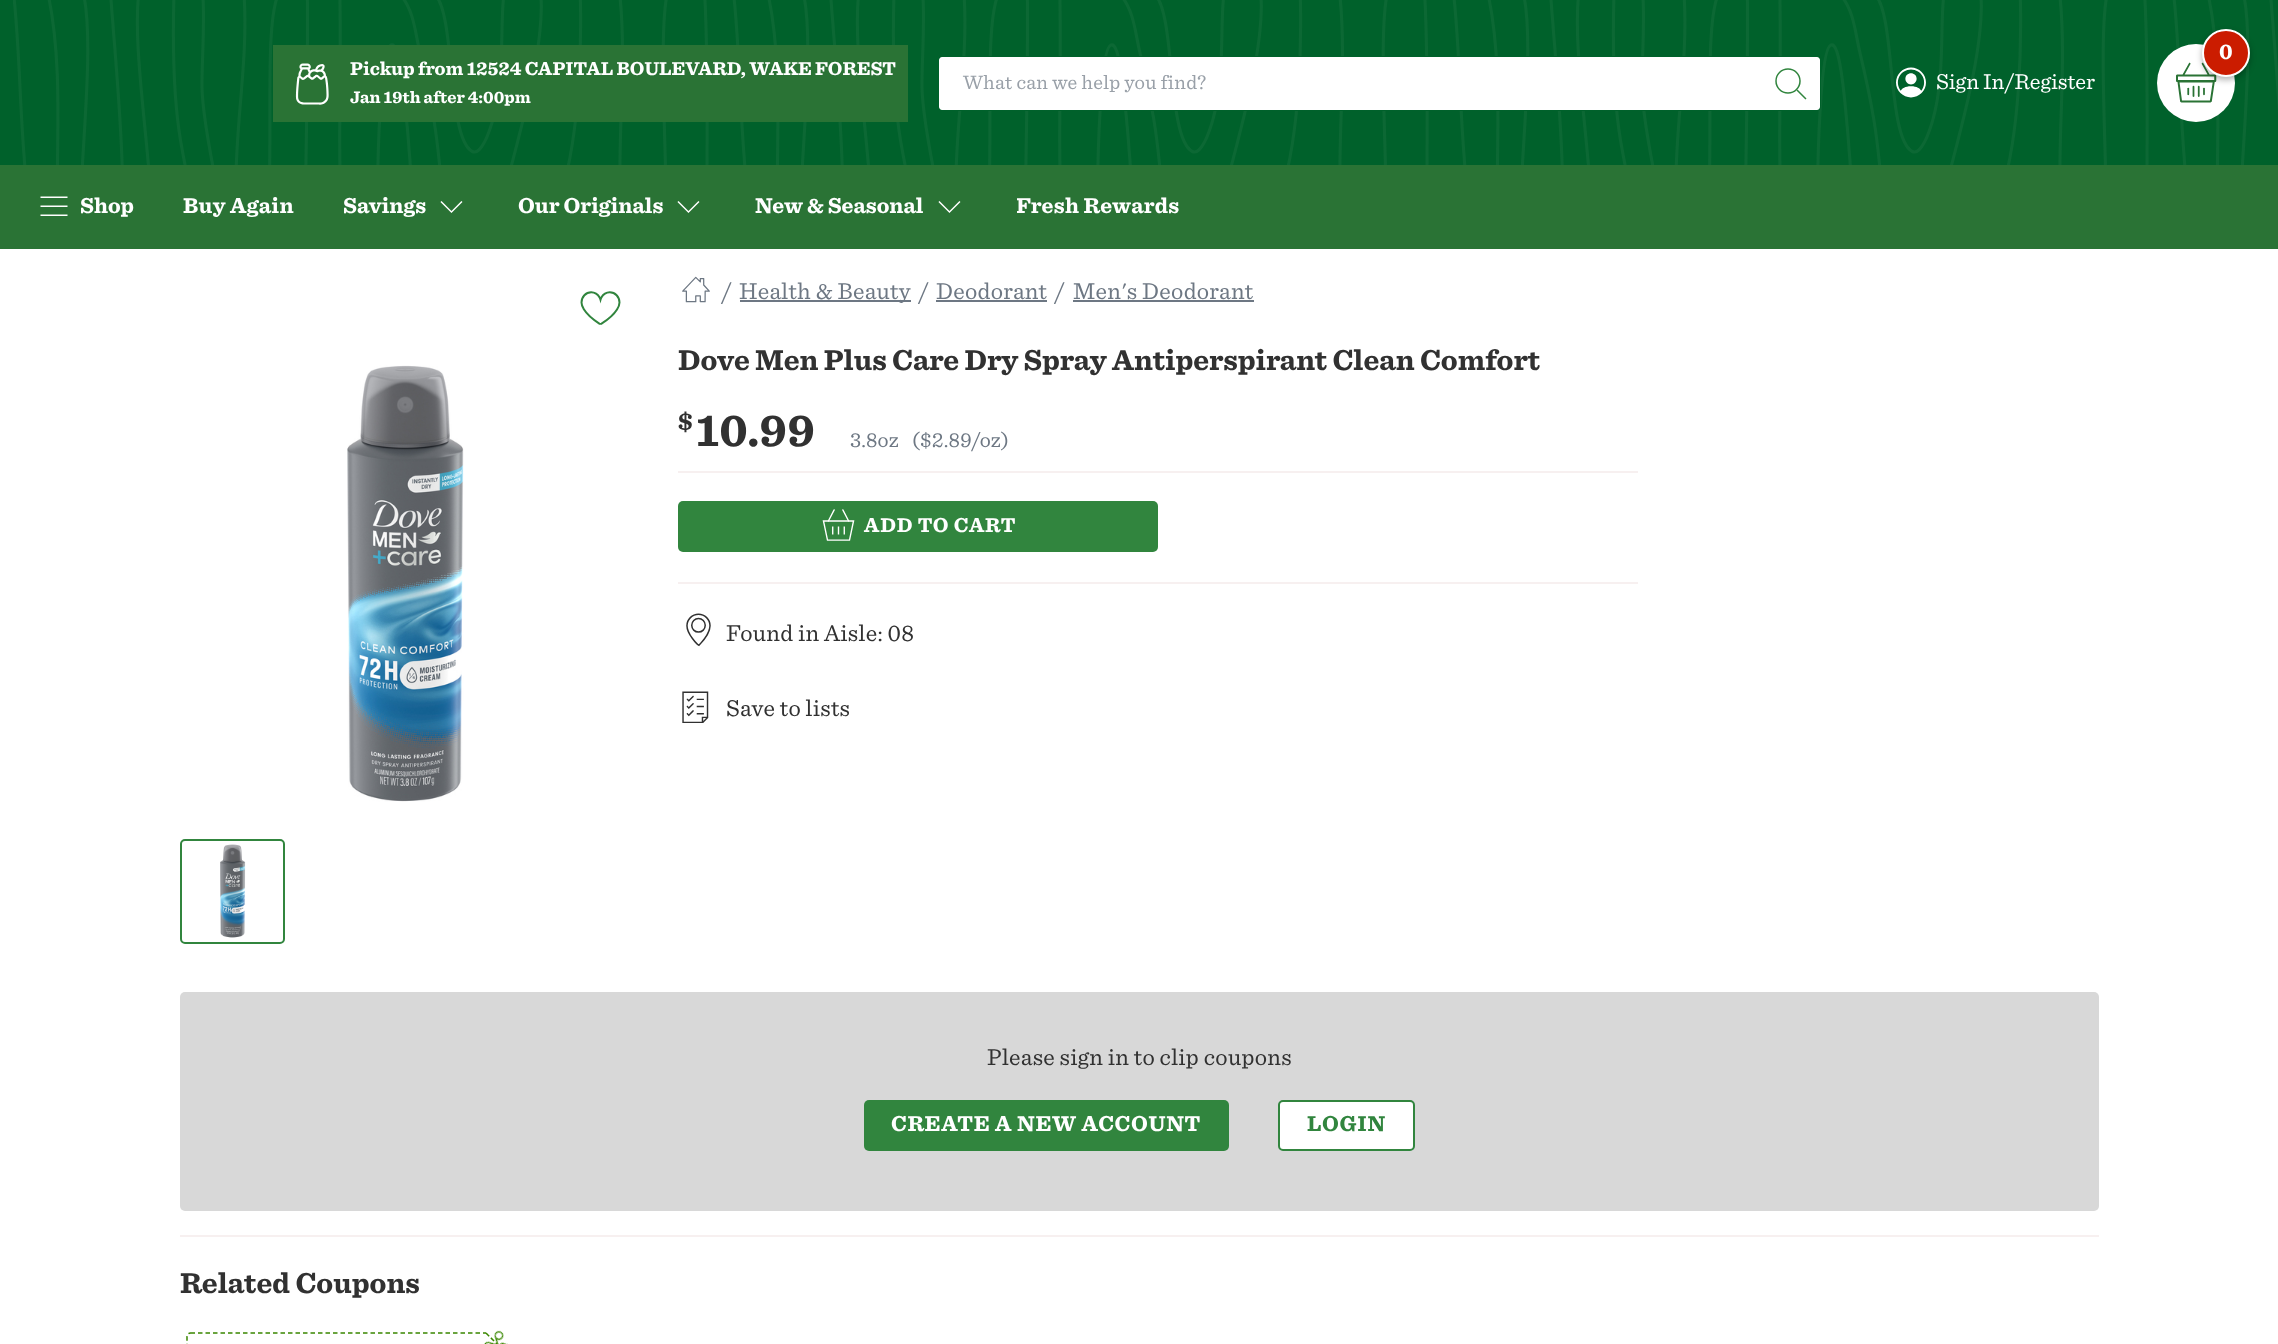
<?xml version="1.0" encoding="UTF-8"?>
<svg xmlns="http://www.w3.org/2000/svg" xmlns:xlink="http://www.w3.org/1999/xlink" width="2278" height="1344">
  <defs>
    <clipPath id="clip1"><rect x="1017" y="194" width="164" height="27" /></clipPath>
  </defs>
  <rect width="100%" height="100%" fill="#ffffff" />
  <rect width="2278" height="165" fill="#00612b" />
  <image x="13" y="0" width="2265" height="165" xlink:href="image1.png" />
  <circle cx="2196" cy="83" r="39" fill="#ffffff" />
  <image x="2176" y="62" width="41" height="41" xlink:href="image2.png" />
  <rect x="2202" y="32" width="48" height="48" rx="24" fill="#000000" fill-opacity="0.3" filter="blur(3px)" />
  <circle cx="2226" cy="53" r="23" fill="#cb1c00" stroke="#ffffff" stroke-width="2" />
  <rect x="273" y="45" width="635" height="77" fill="#2a7335" />
  <image x="295" y="63" width="34" height="42" xlink:href="image3.png" />
  <rect x="939" y="57" width="881" height="53" rx="4" fill="none" stroke="#00612b" stroke-width="2" />
  <path d="M 942 57 h 818 v 53 h -818 c -1.5 0 -3 -1.5 -3 -3 v -47 c 0 -1.5 1.5 -3 3 -3 z" fill="#ffffff" />
  <path d="M 1760 57 h 57 c 1.5 0 3 1.5 3 3 v 47 c 0 1.5 -1.5 3 -3 3 h -57 z" fill="#ffffff" />
  <image x="1775" y="68" width="32" height="32" xlink:href="image4.png" />
  <image x="1896" y="67" width="30" height="31" xlink:href="image5.png" />
  <rect y="165" width="2278" height="84" fill="#2a7335" />
  <image x="40" y="196" width="28" height="20" xlink:href="image6.png" />
  <image x="440" y="201" width="23" height="12" xlink:href="image7.png" />
  <image x="677" y="201" width="23" height="12" xlink:href="image7.png" />
  <image x="938" y="201" width="23" height="12" xlink:href="image7.png" />
  <image x="580" y="291" width="41" height="34" xlink:href="image8.png" />
  <image x="347" y="365" width="117" height="437" xlink:href="image9.png" />
  <rect x="181" y="840" width="103" height="103" rx="4" fill="none" stroke="#31853e" stroke-width="2" />
  <image x="220" y="844" width="26" height="94" xlink:href="image10.png" />
  <image x="682" y="276" width="28" height="27" xlink:href="image11.png" />
  <rect x="740" y="300" width="171" height="2" fill="#6d7783" />
  <rect x="936" y="300" width="111" height="2" fill="#6d7783" />
  <rect x="1073" y="300" width="181" height="2" fill="#6d7783" />
  <rect x="678" y="471" width="960" height="2" fill="#f7f0f0" />
  <rect x="678" y="582" width="960" height="2" fill="#f7f0f0" />
  <rect x="678" y="501" width="480" height="51" rx="5" fill="#31853e" />
  <image x="822" y="509" width="33" height="32" xlink:href="image12.png" />
  <image x="686" y="613" width="25" height="34" xlink:href="image13.png" />
  <image x="682" y="691" width="27" height="32" xlink:href="image14.png" />
  <rect x="180" y="992" width="1919" height="219" rx="5" fill="#d8d8d8" />
  <rect x="864" y="1100" width="365" height="51" rx="5" fill="#31853e" />
  <rect x="1279" y="1101" width="135" height="49" rx="4" fill="#ffffff" stroke="#31853e" stroke-width="2" />
  <rect x="180" y="1235" width="1919" height="2" fill="#f7f0f0" />
  <path d="M 190.5 1333 h 321 c 2 0 3.5 1.5 3.5 3.5 v 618 c 0 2 -1.5 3.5 -3.5 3.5 h -321 c -2 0 -3.5 -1.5 -3.5 -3.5 v -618 c 0 -2 1.5 -3.5 3.5 -3.5 z" fill="none" stroke="#3a8700" stroke-width="1.5" stroke-dasharray="4.5 3" />
  <rect x="486" y="1332" width="30" height="12" fill="#ffffff" />
  <path d="M 486 1333 l 27.5 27.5" fill="none" stroke="#3a8700" stroke-width="1.5" stroke-dasharray="4.5 2.4" />
  <image x="484" y="1330" width="24" height="14" xlink:href="image15.png" />
  <text x="2219" y="59" style="font-family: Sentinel; font-size: 22.5px; font-weight: bold; fill: #ffffff">0</text>
  <text x="350" y="75" style="font-family: Sentinel; font-size: 19.5px; font-weight: bold; fill: #ffffff">Pickup from 12524 CAPITAL BOULEVARD, WAKE FOREST</text>
  <text x="350" y="103" style="font-family: Sentinel; font-size: 17.5px; font-weight: bold; fill: #ffffff">Jan 19th after 4:00pm</text>
  <text x="963" y="89" style="font-family: Sentinel; font-size: 20.4px; letter-spacing: 0.3px; fill: #99a0a8">What can we help you find?</text>
  <text x="1936" y="89" style="font-family: Sentinel; font-size: 22.5px; fill: #ffffff">Sign In/Register</text>
  <text x="80" y="213" style="font-family: Sentinel; font-size: 22.5px; font-weight: bold; fill: #ffffff">Shop</text>
  <text x="183" y="213" style="font-family: Sentinel; font-size: 22.5px; font-weight: bold; letter-spacing: 0.3px; fill: #ffffff">Buy Again</text>
  <text x="343" y="213" style="font-family: Sentinel; font-size: 22.5px; font-weight: bold; fill: #ffffff">Savings</text>
  <text x="518" y="213" style="font-family: Sentinel; font-size: 22.5px; font-weight: bold; fill: #ffffff">Our Originals</text>
  <text x="755" y="213" style="font-family: Sentinel; font-size: 22.5px; font-weight: bold; fill: #ffffff">New &amp; Seasonal</text>
  <g clip-path="url(#clip1)">
    <text x="1016" y="213" style="font-family: Sentinel; font-size: 22.5px; font-weight: bold; letter-spacing: 0.3px; fill: #ffffff">Fresh Rewards</text>
  </g>
  <text x="722" y="299" style="font-family: Sentinel; font-size: 24px; letter-spacing: 0.3px; fill: #6d7783">/</text>
  <text x="739" y="299" style="font-family: Sentinel; font-size: 24px; letter-spacing: 0.3px; fill: #6d7783">Health &amp; Beauty</text>
  <text x="919" y="299" style="font-family: Sentinel; font-size: 24px; letter-spacing: 0.3px; fill: #6d7783">/</text>
  <text x="936" y="299" style="font-family: Sentinel; font-size: 24px; letter-spacing: 0.3px; fill: #6d7783">Deodorant</text>
  <text x="1055" y="299" style="font-family: Sentinel; font-size: 24px; letter-spacing: 0.3px; fill: #6d7783">/</text>
  <text x="1073" y="299" style="font-family: Sentinel; font-size: 24px; letter-spacing: 0.3px; fill: #6d7783">Men's Deodorant</text>
  <text x="678" y="370" style="font-family: Sentinel; font-size: 30px; font-weight: bold; fill: #313131">Dove Men Plus Care Dry Spray Antiperspirant Clean Comfort</text>
  <text x="678" y="430" style="font-family: Sentinel; font-size: 26px; font-weight: bold; letter-spacing: 0.3px; fill: #313131">$</text>
  <text x="696" y="446" style="font-family: Sentinel; font-size: 47px; font-weight: bold; letter-spacing: 0.3px; fill: #313131">10.99</text>
  <text x="850" y="447" style="font-family: Sentinel; font-size: 21.5px; letter-spacing: 0.3px; fill: #6d7783">3.8oz</text>
  <text x="912" y="447" style="font-family: Sentinel; font-size: 21.5px; letter-spacing: 0.3px; fill: #6d7783">($2.89/oz)</text>
  <text x="864" y="532" style="font-family: Sentinel; font-size: 21px; font-weight: bold; letter-spacing: 0.75px; fill: #ffffff">ADD TO CART</text>
  <text x="726" y="641" style="font-family: Sentinel; font-size: 24px; letter-spacing: 0.3px; fill: #313131">Found in Aisle: 08</text>
  <text x="726" y="716" style="font-family: Sentinel; font-size: 24px; letter-spacing: 0.3px; fill: #313131">Save to lists</text>
  <text x="987" y="1065" style="font-family: Sentinel; font-size: 24px; letter-spacing: 0.3px; fill: #313131">Please sign in to clip coupons</text>
  <text x="891" y="1131" style="font-family: Sentinel; font-size: 22.5px; font-weight: bold; letter-spacing: 0.75px; fill: #ffffff">CREATE A NEW ACCOUNT</text>
  <text x="1307" y="1131" style="font-family: Sentinel; font-size: 22.5px; font-weight: bold; letter-spacing: 0.75px; fill: #31853e">LOGIN</text>
  <text x="180" y="1293" style="font-family: Sentinel; font-size: 30px; font-weight: bold; fill: #313131">Related Coupons</text>
</svg>
